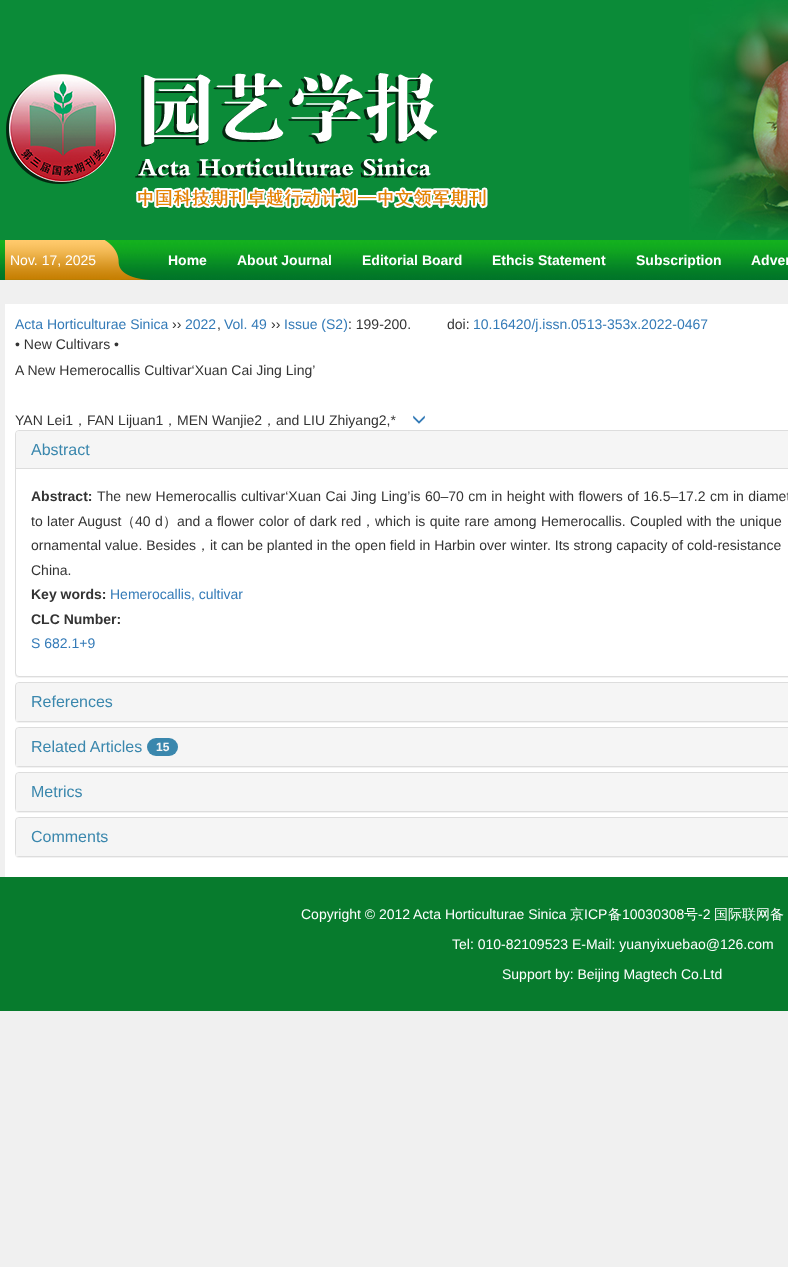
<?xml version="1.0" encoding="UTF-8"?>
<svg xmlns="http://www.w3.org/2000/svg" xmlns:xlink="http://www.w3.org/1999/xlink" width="788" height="1267">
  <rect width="100%" height="100%" fill="#f0f0f0" />
  <rect width="788" height="240" fill="#0b8b38" />
  <image x="6" y="73" width="482" height="136" xlink:href="image1.png" />
  <image x="689" y="0" width="99" height="239" xlink:href="image2.png" />
  <image x="0" y="240" width="788" height="40" xlink:href="image3.png" />
  <image x="5" y="240" width="96" height="40" xlink:href="image4.png" />
  <image x="101" y="240" width="50" height="40" xlink:href="image5.png" />
  <rect x="5" y="304" width="783" height="573" fill="#ffffff" />
  <image x="413" y="415" width="12" height="9" xlink:href="image6.png" />
  <rect x="15" y="431" width="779" height="247" rx="4" fill="#000000" fill-opacity="0.05" filter="blur(0.5px)" />
  <rect x="15.5" y="430.5" width="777" height="246" rx="3.5" fill="#ffffff" stroke="#dddddd" />
  <path d="M 19 431 h 769 c 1.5 0 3 1.5 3 3 v 34 h -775 v -34 c 0 -1.5 1.5 -3 3 -3 z" fill="#f5f5f5" />
  <rect x="16" y="468" width="772" height="1" fill="#dddddd" />
  <rect x="15" y="683" width="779" height="40" rx="4" fill="#000000" fill-opacity="0.05" filter="blur(0.5px)" />
  <rect x="15.5" y="682.5" width="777" height="39" rx="3.5" fill="none" stroke="#dddddd" />
  <path d="M 19 683 h 769 c 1.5 0 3 1.5 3 3 v 35 h -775 v -35 c 0 -1.5 1.5 -3 3 -3 z" fill="#f5f5f5" />
  <rect x="15" y="728" width="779" height="40" rx="4" fill="#000000" fill-opacity="0.05" filter="blur(0.5px)" />
  <rect x="15.5" y="727.5" width="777" height="39" rx="3.5" fill="none" stroke="#dddddd" />
  <path d="M 19 728 h 769 c 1.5 0 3 1.5 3 3 v 35 h -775 v -35 c 0 -1.5 1.5 -3 3 -3 z" fill="#f5f5f5" />
  <rect x="147" y="738" width="31" height="18" rx="9" fill="#3a87ad" />
  <rect x="15" y="773" width="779" height="40" rx="4" fill="#000000" fill-opacity="0.05" filter="blur(0.5px)" />
  <rect x="15.5" y="772.5" width="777" height="39" rx="3.5" fill="none" stroke="#dddddd" />
  <path d="M 19 773 h 769 c 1.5 0 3 1.5 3 3 v 35 h -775 v -35 c 0 -1.5 1.5 -3 3 -3 z" fill="#f5f5f5" />
  <rect x="15" y="818" width="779" height="40" rx="4" fill="#000000" fill-opacity="0.05" filter="blur(0.5px)" />
  <rect x="15.5" y="817.5" width="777" height="39" rx="3.5" fill="none" stroke="#dddddd" />
  <path d="M 19 818 h 769 c 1.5 0 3 1.5 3 3 v 35 h -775 v -35 c 0 -1.5 1.5 -3 3 -3 z" fill="#f5f5f5" />
  <rect y="877" width="788" height="134" fill="#077b2d" />
  <text x="10" y="265" style="font-family: Liberation Sans; font-size: 14px; fill: #ffffff">Nov. 17, 2025</text>
  <text x="168" y="265" style="font-family: Liberation Sans; font-size: 14px; font-weight: bold; fill: #ffffff">Home</text>
  <text x="237" y="265" style="font-family: Liberation Sans; font-size: 14px; font-weight: bold; fill: #ffffff">About Journal</text>
  <text x="362" y="265" style="font-family: Liberation Sans; font-size: 14px; font-weight: bold; fill: #ffffff">Editorial Board</text>
  <text x="492" y="265" style="font-family: Liberation Sans; font-size: 14px; font-weight: bold; fill: #ffffff">Ethcis Statement</text>
  <text x="636" y="265" style="font-family: Liberation Sans; font-size: 14px; font-weight: bold; fill: #ffffff">Subscription</text>
  <text x="751" y="265" style="font-family: Liberation Sans; font-size: 14px; font-weight: bold; fill: #ffffff">Adver</text>
  <text x="15" y="329" style="font-family: Liberation Sans; font-size: 14px; fill: #337ab7">Acta Horticulturae Sinica</text>
  <text x="172" y="329" style="font-family: Liberation Sans; font-size: 14px; fill: #333333">››</text>
  <text x="185" y="329" style="font-family: Liberation Sans; font-size: 14px; fill: #337ab7">2022</text>
  <text x="217" y="329" style="font-family: Liberation Sans; font-size: 14px; fill: #333333">,</text>
  <text x="224" y="329" style="font-family: Liberation Sans; font-size: 14px; fill: #337ab7">Vol. 49</text>
  <text x="271" y="329" style="font-family: Liberation Sans; font-size: 14px; fill: #333333">››</text>
  <text x="284" y="329" style="font-family: Liberation Sans; font-size: 14px; fill: #337ab7">Issue (S2)</text>
  <text x="348" y="329" style="font-family: Liberation Sans; font-size: 14px; fill: #333333">: 199-200.</text>
  <text x="447" y="329" style="font-family: Liberation Sans; font-size: 14px; fill: #333333">doi:</text>
  <text x="473" y="329" style="font-family: Liberation Sans; font-size: 14px; fill: #337ab7">10.16420/j.issn.0513-353x.2022-0467</text>
  <text x="15" y="349" style="font-family: Liberation Sans; font-size: 14px; fill: #333333">• New Cultivars •</text>
  <text x="15" y="375" style="font-family: Liberation Sans; font-size: 14px; fill: #333333">A New Hemerocallis Cultivar‘Xuan Cai Jing Ling’</text>
  <text x="15" y="425" style="font-family: Liberation Sans; font-size: 14px; fill: #333333">YAN Lei1</text>
  <text x="87" y="425" style="font-family: Liberation Sans; font-size: 14px; fill: #333333">FAN Lijuan1</text>
  <text x="177" y="425" style="font-family: Liberation Sans; font-size: 14px; fill: #333333">MEN Wanjie2</text>
  <text x="276" y="425" style="font-family: Liberation Sans; font-size: 14px; fill: #333333">and LIU Zhiyang2,*</text>
  <text x="73" y="425" style="font-family: WenQuanYi Zen Hei; font-size: 14px; font-weight: 500; fill: #333333">，</text>
  <text x="163" y="425" style="font-family: WenQuanYi Zen Hei; font-size: 14px; font-weight: 500; fill: #333333">，</text>
  <text x="262" y="425" style="font-family: WenQuanYi Zen Hei; font-size: 14px; font-weight: 500; fill: #333333">，</text>
  <text x="31" y="455" style="font-family: Liberation Sans; font-size: 16px; fill: #3a87ad">Abstract</text>
  <text x="31" y="501" style="font-family: Liberation Sans; font-size: 14px; font-weight: bold; fill: #333333">Abstract:</text>
  <text x="97" y="501" word-spacing="0.5" style="font-family: Liberation Sans; font-size: 14px; fill: #333333">The new Hemerocallis cultivar‘Xuan Cai Jing Ling’is 60–70 cm in height with flowers of 16.5–17.2 cm in diamet</text>
  <text x="31" y="526" word-spacing="0.5" style="font-family: Liberation Sans; font-size: 14px; fill: #333333">to later August</text>
  <text x="121" y="526" style="font-family: WenQuanYi Zen Hei; font-size: 14px; font-weight: 500; fill: #333333">（</text>
  <text x="135" y="526" word-spacing="0.5" style="font-family: Liberation Sans; font-size: 14px; fill: #333333">40 d</text>
  <text x="163" y="526" style="font-family: WenQuanYi Zen Hei; font-size: 14px; font-weight: 500; fill: #333333">）</text>
  <text x="177" y="526" word-spacing="0.5" style="font-family: Liberation Sans; font-size: 14px; fill: #333333">and a flower color of dark red</text>
  <text x="361" y="526" style="font-family: WenQuanYi Zen Hei; font-size: 14px; font-weight: 500; fill: #333333">，</text>
  <text x="375" y="526" word-spacing="0.5" style="font-family: Liberation Sans; font-size: 14px; fill: #333333">which is quite rare among Hemerocallis. Coupled with the unique</text>
  <text x="31" y="550" style="font-family: Liberation Sans; font-size: 14px; fill: #333333">ornamental value. Besides</text>
  <text x="196" y="550" style="font-family: WenQuanYi Zen Hei; font-size: 14px; font-weight: 500; fill: #333333">，</text>
  <text x="210" y="550" style="font-family: Liberation Sans; font-size: 14px; fill: #333333">it can be planted in the open field in Harbin over winter. Its strong capacity of cold-resistance</text>
  <text x="31" y="575" style="font-family: Liberation Sans; font-size: 14px; fill: #333333">China.</text>
  <text x="31" y="599" style="font-family: Liberation Sans; font-size: 14px; font-weight: bold; fill: #333333">Key words:</text>
  <text x="110" y="599" style="font-family: Liberation Sans; font-size: 14px; fill: #337ab7">Hemerocallis, cultivar</text>
  <text x="31" y="624" style="font-family: Liberation Sans; font-size: 14px; font-weight: bold; fill: #333333">CLC Number:</text>
  <text x="31" y="648" style="font-family: Liberation Sans; font-size: 14px; fill: #337ab7">S 682.1+9</text>
  <text x="31" y="707" style="font-family: Liberation Sans; font-size: 16px; fill: #3a87ad">References</text>
  <text x="31" y="752" style="font-family: Liberation Sans; font-size: 16px; fill: #3a87ad">Related Articles</text>
  <text x="156" y="751" style="font-family: Liberation Sans; font-size: 12px; font-weight: bold; fill: #f5f5f5">15</text>
  <text x="31" y="797" style="font-family: Liberation Sans; font-size: 16px; fill: #3a87ad">Metrics</text>
  <text x="31" y="842" style="font-family: Liberation Sans; font-size: 16px; fill: #3a87ad">Comments</text>
  <text x="301" y="919" style="font-family: Liberation Sans; font-size: 14px; fill: #ffffff">Copyright © 2012</text>
  <text x="413" y="919" style="font-family: Liberation Sans; font-size: 14px; fill: #ffffff">Acta Horticulturae Sinica</text>
  <text x="570" y="919" style="font-family: WenQuanYi Zen Hei; font-size: 14px; font-weight: 500; fill: #ffffff">京</text>
  <text x="584" y="919" style="font-family: Liberation Sans; font-size: 14px; fill: #ffffff">ICP</text>
  <text x="608" y="919" style="font-family: WenQuanYi Zen Hei; font-size: 14px; font-weight: 500; fill: #ffffff">备</text>
  <text x="622" y="919" style="font-family: Liberation Sans; font-size: 14px; fill: #ffffff">10030308</text>
  <text x="684" y="919" style="font-family: WenQuanYi Zen Hei; font-size: 14px; font-weight: 500; fill: #ffffff">号</text>
  <text x="698" y="919" style="font-family: Liberation Sans; font-size: 14px; fill: #ffffff">-2</text>
  <text x="714" y="919" style="font-family: WenQuanYi Zen Hei; font-size: 14px; font-weight: 500; fill: #ffffff">国际联网备</text>
  <text x="452" y="949" style="font-family: Liberation Sans; font-size: 14px; fill: #ffffff">Tel: 010-82109523 E-Mail: yuanyixuebao@126.com</text>
  <text x="502" y="979" style="font-family: Liberation Sans; font-size: 14px; fill: #ffffff">Support by: Beijing Magtech Co.Ltd</text>
</svg>
